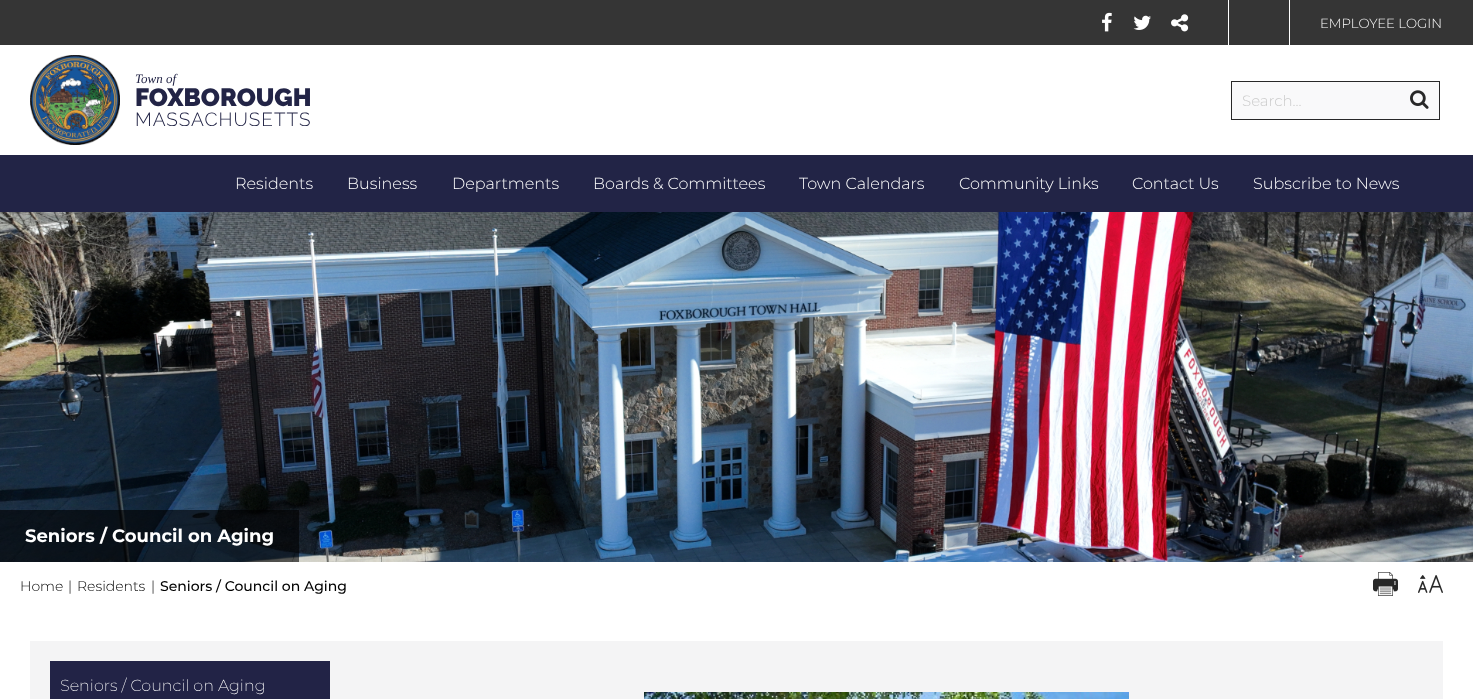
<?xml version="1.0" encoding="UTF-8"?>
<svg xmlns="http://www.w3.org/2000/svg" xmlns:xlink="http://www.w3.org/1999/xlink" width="1473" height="699">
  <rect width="100%" height="100%" fill="#ffffff" />
  <rect width="1473" height="45" fill="#353535" />
  <image x="1102" y="12" width="10" height="20" xlink:href="image1.png" />
  <image x="1133" y="15" width="18" height="15" xlink:href="image2.png" />
  <image x="1171" y="14" width="18" height="18" xlink:href="image3.png" />
  <rect x="1228" width="1" height="45" fill="#ffffff" />
  <rect x="1289" width="1" height="45" fill="#ffffff" />
  <image x="30" y="55" width="90" height="90" xlink:href="image4.png" />
  <rect x="1231.5" y="81.5" width="208" height="38" fill="#f9f9fa" stroke="#282828" />
  <image x="1410" y="90" width="19" height="19" xlink:href="image5.png" />
  <rect y="155" width="1473" height="57" fill="#222446" />
  <image x="0" y="212" width="1473" height="350" xlink:href="image6.png" />
  <rect y="510" width="299" height="52" fill="#000000" fill-opacity="0.6" />
  <image x="1373" y="572" width="25" height="24" xlink:href="image7.png" />
  <image x="1418" y="575" width="25" height="18" xlink:href="image8.png" />
  <rect x="30" y="641" width="1413" height="58" fill="#f4f4f5" />
  <rect x="50" y="661" width="280" height="38" fill="#222346" />
  <image x="644" y="692" width="485" height="7" xlink:href="image9.png" />
  <text x="1320" y="28" style="font-family: Montserrat; font-size: 13.25px; font-weight: 300; fill: #ffffff">EMPLOYEE LOGIN</text>
  <text x="135" y="83" style="font-family: Liberation Serif; font-size: 13px; font-style: italic; fill: #222446">Town of</text>
  <text x="135" y="106" style="font-family: Raleway; font-size: 25px; font-weight: 900; fill: #222446">FOXBOROUGH</text>
  <text x="135" y="126" style="font-family: Raleway; font-size: 19px; font-weight: 300; letter-spacing: 1px; fill: #222446">MASSACHUSETTS</text>
  <text x="1242" y="106" style="font-family: Montserrat; font-size: 15px; font-weight: 300; fill: #cccccc">Search...</text>
  <text x="235" y="189" style="font-family: Montserrat; font-size: 16px; font-weight: 300; fill: #ffffff">Residents</text>
  <text x="347" y="189" style="font-family: Montserrat; font-size: 16px; font-weight: 300; fill: #ffffff">Business</text>
  <text x="452" y="189" style="font-family: Montserrat; font-size: 16px; font-weight: 300; fill: #ffffff">Departments</text>
  <text x="593" y="189" style="font-family: Montserrat; font-size: 16px; font-weight: 300; fill: #ffffff">Boards &amp; Committees</text>
  <text x="799" y="189" style="font-family: Montserrat; font-size: 16px; font-weight: 300; fill: #ffffff">Town Calendars</text>
  <text x="959" y="189" style="font-family: Montserrat; font-size: 16px; font-weight: 300; fill: #ffffff">Community Links</text>
  <text x="1132" y="189" style="font-family: Montserrat; font-size: 16px; font-weight: 300; fill: #ffffff">Contact Us</text>
  <text x="1253" y="189" style="font-family: Montserrat; font-size: 16px; font-weight: 300; fill: #ffffff">Subscribe to News</text>
  <text x="25" y="542" style="font-family: Montserrat; font-size: 18px; font-weight: bold; fill: #ffffff">Seniors / Council on Aging</text>
  <text x="20" y="591" style="font-family: Montserrat; font-size: 14px; font-weight: 300; fill: #000000">Home</text>
  <text x="68" y="591" style="font-family: Montserrat; font-size: 14px; font-weight: 300; fill: #000000">|</text>
  <text x="77" y="591" style="font-family: Montserrat; font-size: 14px; font-weight: 300; fill: #000000">Residents</text>
  <text x="151" y="591" style="font-family: Montserrat; font-size: 14px; font-weight: 300; fill: #000000">|</text>
  <text x="160" y="591" style="font-family: Montserrat; font-size: 14px; font-weight: 500; fill: #000000">Seniors / Council on Aging</text>
  <text x="60" y="691" style="font-family: Montserrat; font-size: 16px; font-weight: 200; fill: #ffffff">Seniors / Council on Aging</text>
</svg>
